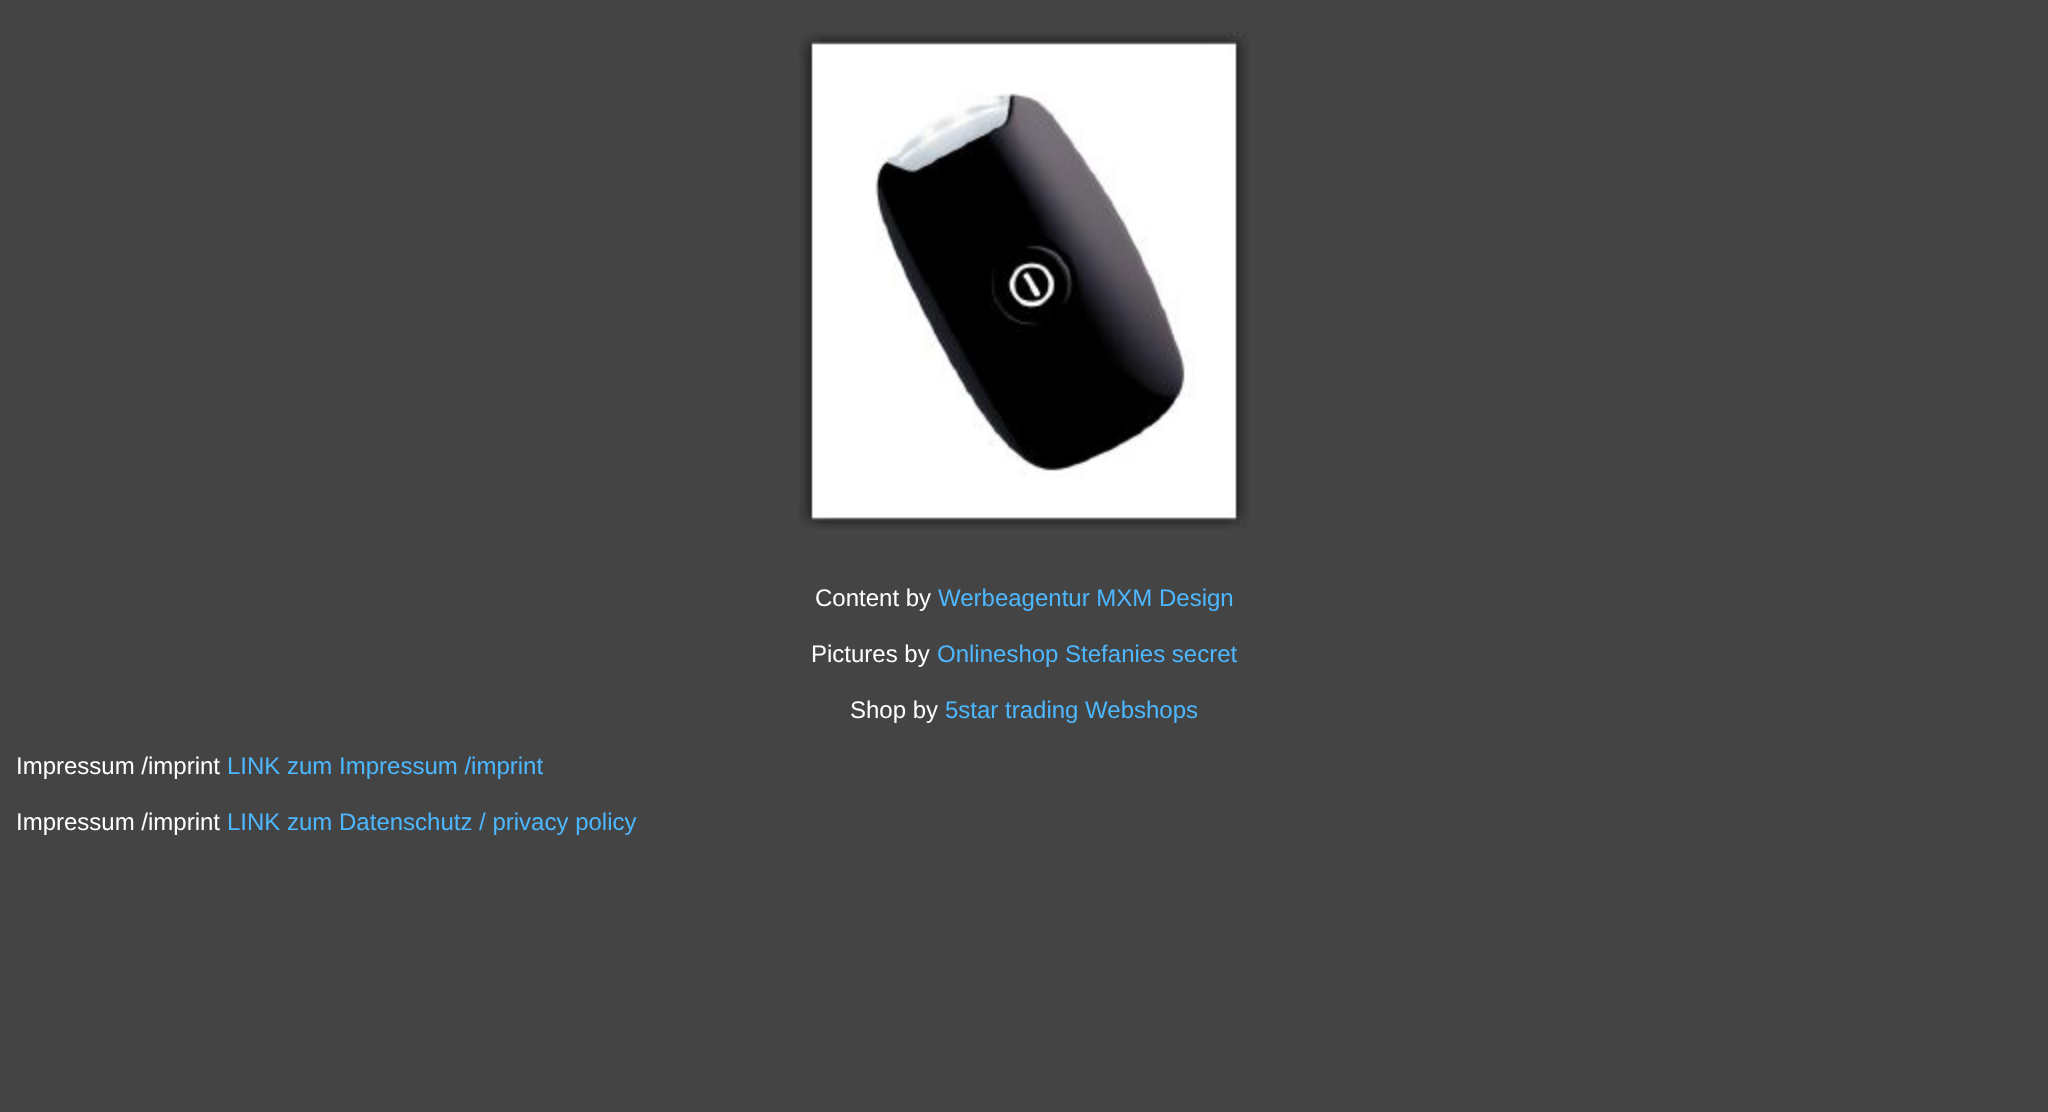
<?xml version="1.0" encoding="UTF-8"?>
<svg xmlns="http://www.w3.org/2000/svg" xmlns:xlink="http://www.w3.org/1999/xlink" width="2048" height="1112">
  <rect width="100%" height="100%" fill="#444444" />
  <image x="799" y="32" width="450" height="497" xlink:href="image1.png" />
  <text x="815" y="606" style="font-family: Liberation Sans; font-size: 24px; fill: #ffffff">Content by</text>
  <text x="938" y="606" style="font-family: Liberation Sans; font-size: 24px; fill: #4db8ff">Werbeagentur MXM Design</text>
  <text x="811" y="662" style="font-family: Liberation Sans; font-size: 24px; fill: #ffffff">Pictures by</text>
  <text x="937" y="662" style="font-family: Liberation Sans; font-size: 24px; fill: #4db8ff">Onlineshop Stefanies secret</text>
  <text x="850" y="718" style="font-family: Liberation Sans; font-size: 24px; fill: #ffffff">Shop by</text>
  <text x="945" y="718" style="font-family: Liberation Sans; font-size: 24px; fill: #4db8ff">5star trading Webshops</text>
  <text x="16" y="774" style="font-family: Liberation Sans; font-size: 24px; fill: #ffffff">Impressum /imprint</text>
  <text x="227" y="774" style="font-family: Liberation Sans; font-size: 24px; fill: #4db8ff">LINK zum Impressum /imprint</text>
  <text x="16" y="830" style="font-family: Liberation Sans; font-size: 24px; fill: #ffffff">Impressum /imprint</text>
  <text x="227" y="830" style="font-family: Liberation Sans; font-size: 24px; fill: #4db8ff">LINK zum Datenschutz / privacy policy</text>
</svg>
